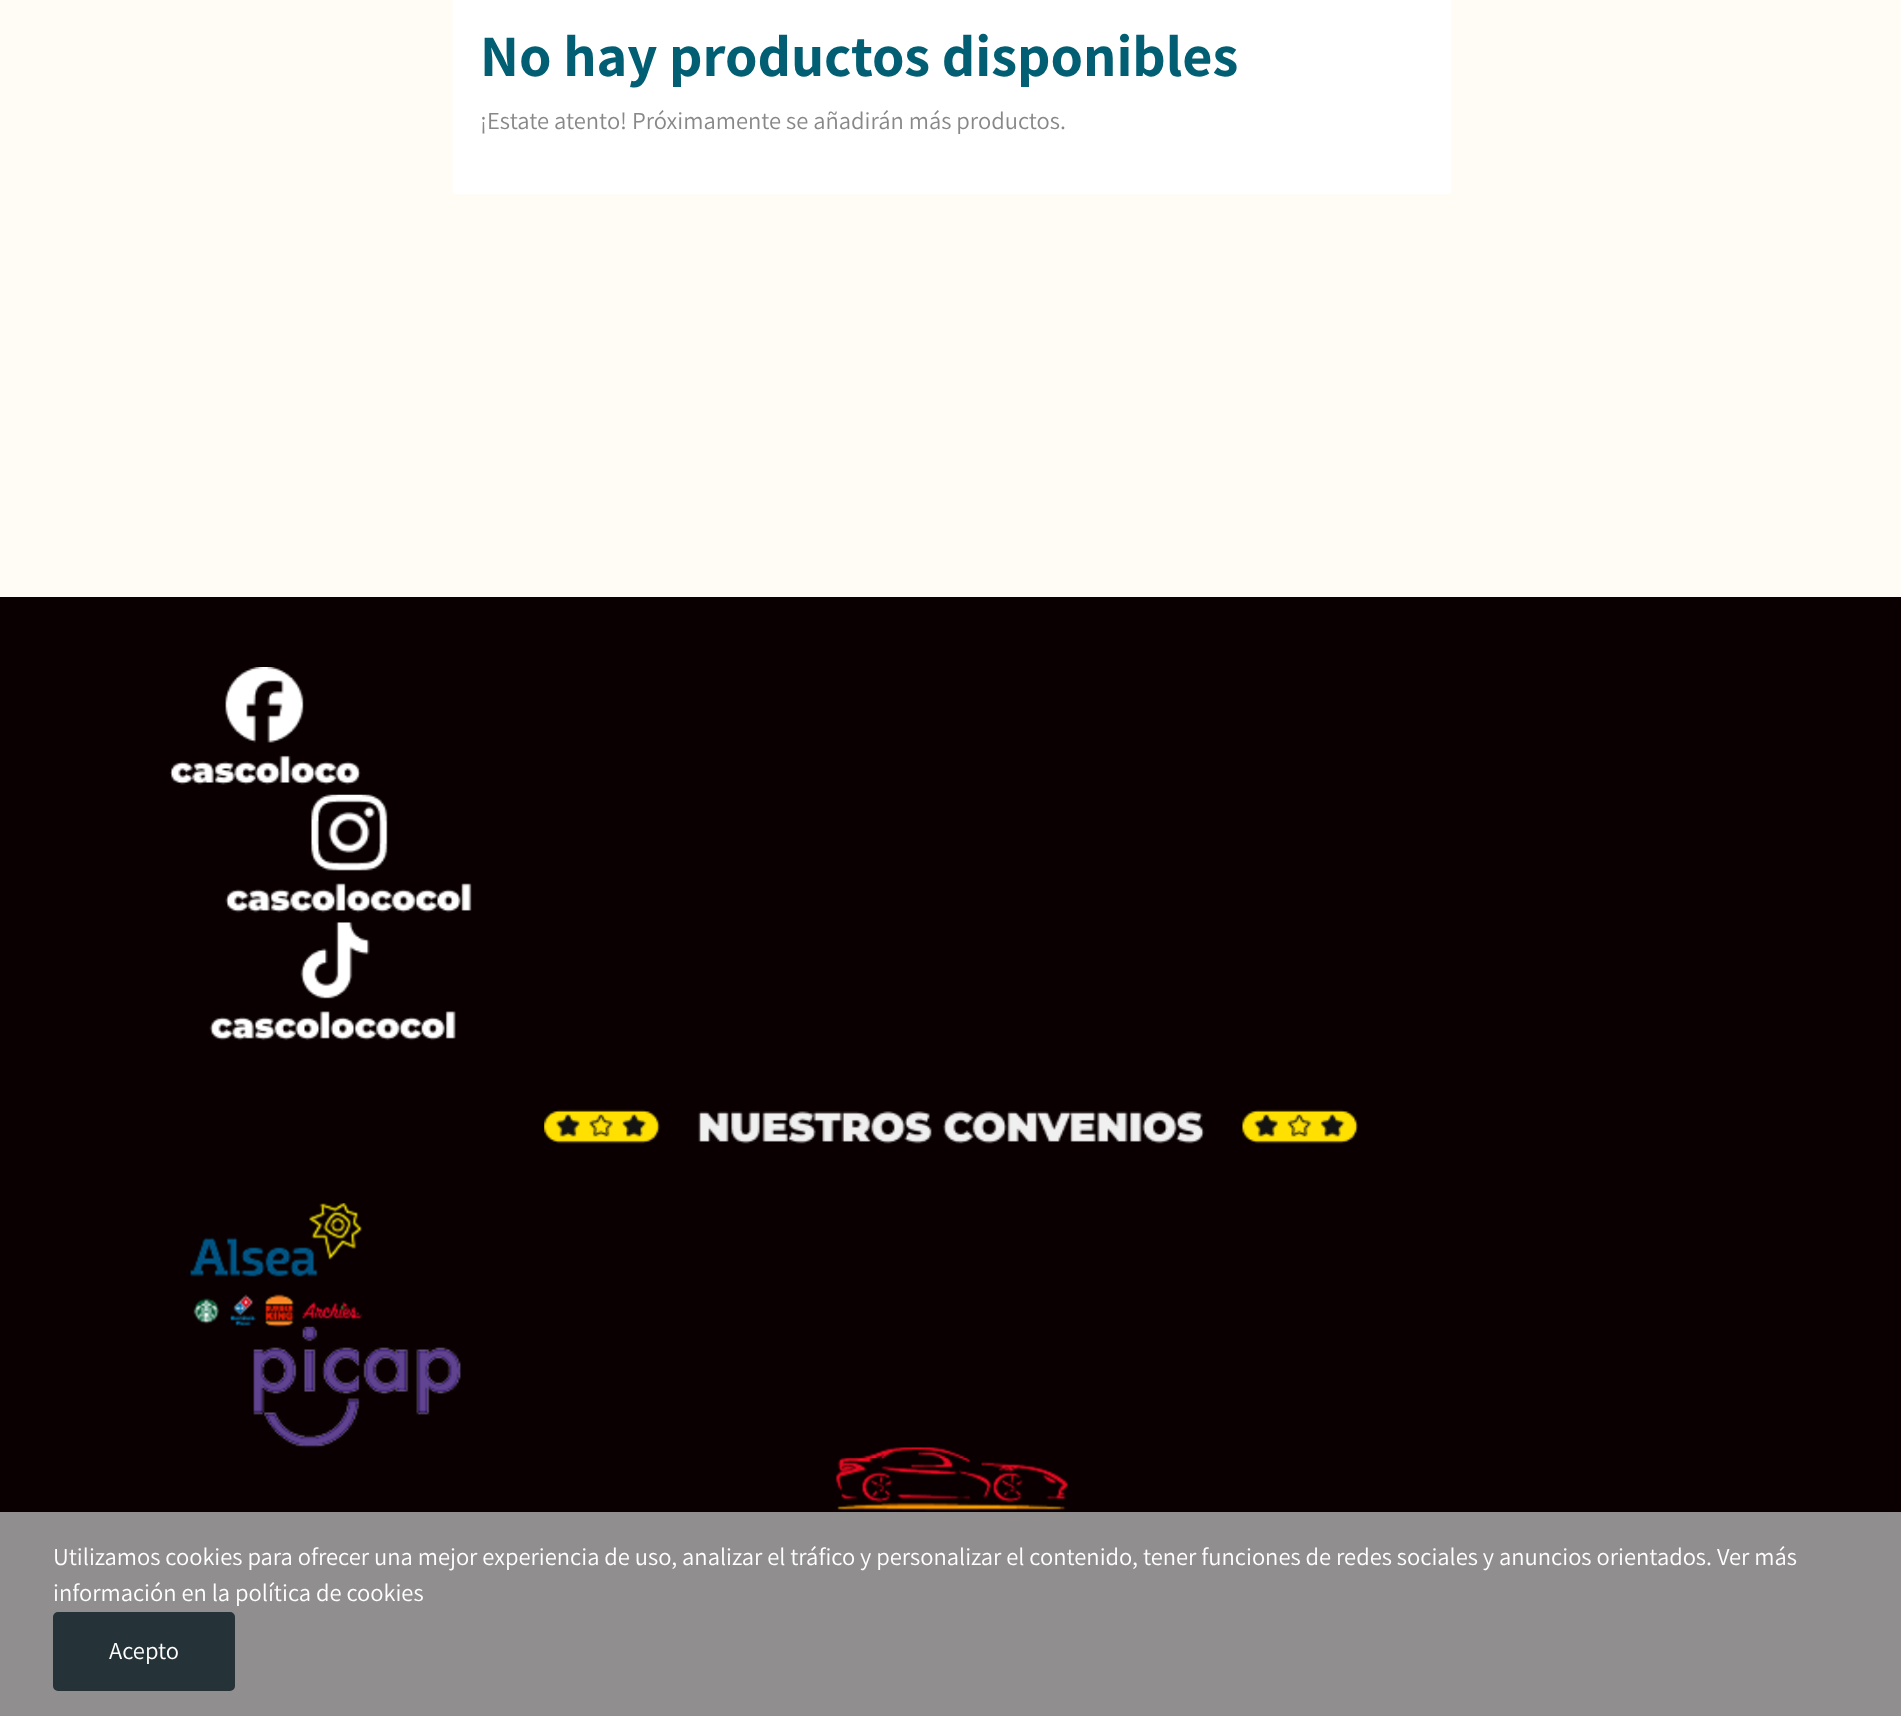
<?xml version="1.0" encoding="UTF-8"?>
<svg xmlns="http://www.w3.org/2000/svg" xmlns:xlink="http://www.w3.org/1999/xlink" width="1901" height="1716">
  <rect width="100%" height="100%" fill="#fffcf6" />
  <rect x="453" width="998" height="194" fill="#ffffff" />
  <rect y="597" width="1901" height="915" fill="#0a0002" />
  <image x="169" y="667" width="192" height="118" xlink:href="image1.png" />
  <image x="225" y="794" width="247" height="119" xlink:href="image2.png" />
  <image x="209" y="922" width="247" height="119" xlink:href="image3.png" />
  <image x="544" y="1109" width="814" height="35" xlink:href="image4.png" />
  <image x="190" y="1203" width="173" height="125" xlink:href="image5.png" />
  <image x="253" y="1326" width="208" height="122" xlink:href="image6.png" />
  <image x="835" y="1447" width="233" height="65" xlink:href="image7.png" />
  <rect y="1512" width="1901" height="204" fill="#908e8f" />
  <rect x="55" y="1614" width="178" height="75" rx="3" fill="#253237" stroke="#253237" stroke-width="4" />
  <text x="480" y="76" style="font-family: Assistant; font-size: 58.75px; font-weight: bold; fill: #025e73">No hay productos disponibles</text>
  <text x="480" y="129" style="font-family: Assistant; font-size: 24.5px; fill: #888888">¡Estate atento! Próximamente se añadirán más productos.</text>
  <text x="53" y="1565" style="font-family: Assistant; font-size: 24.5px; fill: #ffffff">Utilizamos cookies para ofrecer una mejor experiencia de uso, analizar el tráfico y personalizar el contenido, tener funciones de redes sociales y anuncios orientados. Ver más</text>
  <text x="53" y="1601" style="font-family: Assistant; font-size: 24.5px; fill: #ffffff">información en la política de cookies</text>
  <text x="109" y="1659" style="font-family: Assistant; font-size: 24.5px; fill: #ffffff">Acepto</text>
</svg>
